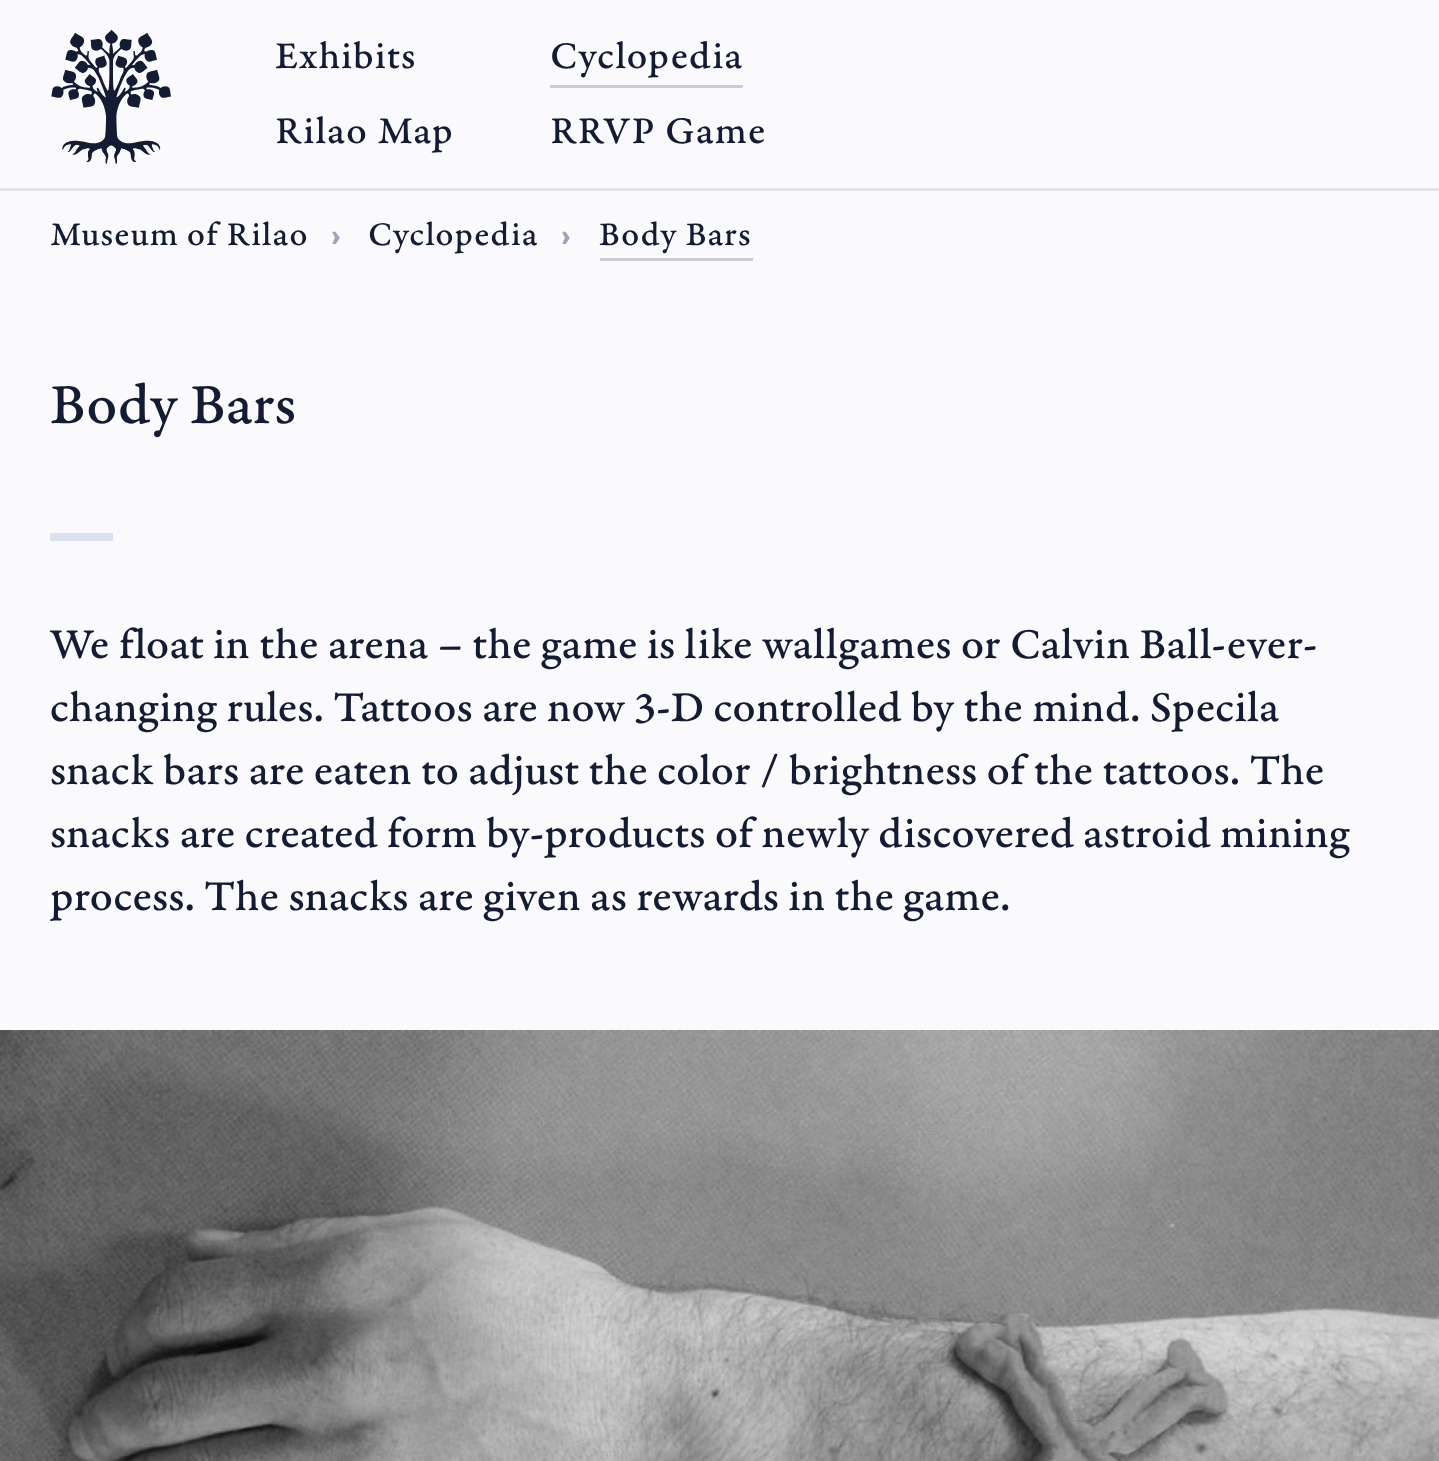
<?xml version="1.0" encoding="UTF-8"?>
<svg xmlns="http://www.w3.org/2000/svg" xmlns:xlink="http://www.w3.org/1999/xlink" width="1439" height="1461">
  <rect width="100%" height="100%" fill="#fafafc" />
  <image x="51" y="29" width="120" height="135" xlink:href="image1.png" />
  <rect x="550" y="85" width="193" height="3" fill="#ccced4" />
  <rect y="188" width="1439" height="3" fill="#e3e4e7" />
  <rect x="600" y="258" width="153" height="3" fill="#ccced4" />
  <rect x="50" y="533" width="63" height="8" fill="#dae2f2" />
  <image x="0" y="1030" width="1439" height="431" xlink:href="image2.png" />
  <text x="275" y="68" style="font-family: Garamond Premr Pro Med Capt; font-size: 40px; font-weight: 500; letter-spacing: 1px; fill: #131c33">Exhibits</text>
  <text x="550" y="68" style="font-family: Garamond Premr Pro Med Capt; font-size: 40px; font-weight: 500; letter-spacing: 1px; fill: #131c33">Cyclopedia</text>
  <text x="275" y="143" style="font-family: Garamond Premr Pro Med Capt; font-size: 40px; font-weight: 500; letter-spacing: 1px; fill: #131c33">Rilao Map</text>
  <text x="550" y="143" style="font-family: Garamond Premr Pro Med Capt; font-size: 40px; font-weight: 500; letter-spacing: 1px; fill: #131c33">RRVP Game</text>
  <text x="50" y="245" style="font-family: Garamond Premr Pro Med Capt; font-size: 35px; font-weight: 500; letter-spacing: 1px; fill: #131c33">Museum of Rilao</text>
  <text x="331" y="245" style="font-family: Brandon Grotesque; font-size: 35px; font-weight: bold; letter-spacing: 1px; fill: #9da5b6">›</text>
  <text x="368" y="245" style="font-family: Garamond Premr Pro Med Capt; font-size: 35px; font-weight: 500; letter-spacing: 1px; fill: #131c33">Cyclopedia</text>
  <text x="561" y="245" style="font-family: Brandon Grotesque; font-size: 35px; font-weight: bold; letter-spacing: 1px; fill: #9da5b6">›</text>
  <text x="599" y="245" style="font-family: Garamond Premr Pro Med Capt; font-size: 35px; font-weight: 500; letter-spacing: 1px; fill: #131c33">Body Bars</text>
  <text x="50" y="423" style="font-family: Garamond Premr Pro Med Capt; font-size: 60px; font-weight: 500; fill: #131c33">Body Bars</text>
  <text x="50" y="658" style="font-family: Garamond Premr Pro Med Capt; font-size: 45px; font-weight: 500; fill: #131c33">We float in the arena – the game is like wallgames or Calvin Ball-ever-</text>
  <text x="50" y="721" style="font-family: Garamond Premr Pro Med Capt; font-size: 45px; font-weight: 500; fill: #131c33">changing rules. Tattoos are now 3-D controlled by the mind. Specila</text>
  <text x="50" y="784" style="font-family: Garamond Premr Pro Med Capt; font-size: 45px; font-weight: 500; fill: #131c33">snack bars are eaten to adjust the color / brightness of the tattoos. The</text>
  <text x="50" y="847" style="font-family: Garamond Premr Pro Med Capt; font-size: 45px; font-weight: 500; fill: #131c33">snacks are created form by-products of newly discovered astroid mining</text>
  <text x="50" y="910" style="font-family: Garamond Premr Pro Med Capt; font-size: 45px; font-weight: 500; fill: #131c33">process. The snacks are given as rewards in the game.</text>
</svg>
